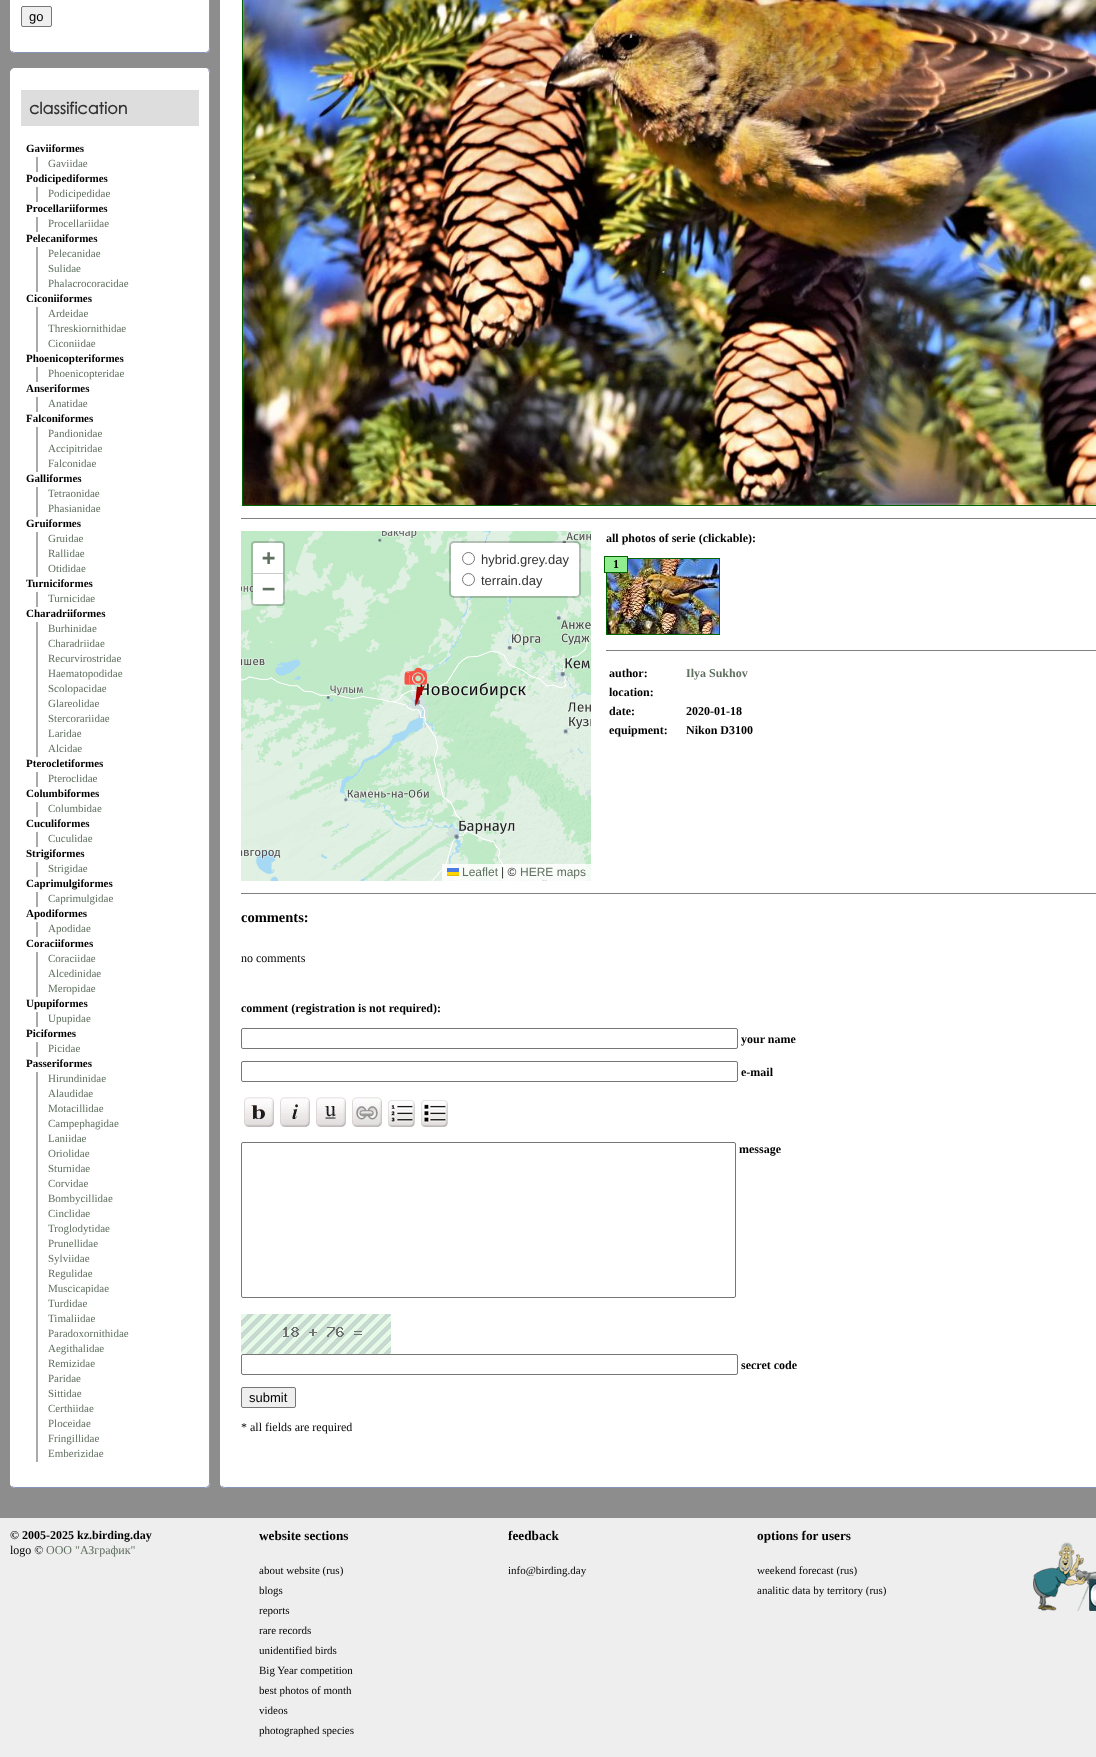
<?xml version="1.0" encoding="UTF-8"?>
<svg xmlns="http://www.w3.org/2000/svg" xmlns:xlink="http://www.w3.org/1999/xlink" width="1096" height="1757">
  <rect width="100%" height="100%" fill="#8d8d8d" />
  <rect x="10" y="-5" width="200" height="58" rx="5" fill="#ffffff" />
  <path d="M 208 -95 c 1 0.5 1.5 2 1.5 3 v 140 c 0 1 -0.5 2.5 -1.5 3 c -0.5 1 -2 1.5 -3 1.5 h -190 c -1 0 -2.5 -0.5 -3 -1.5" fill="none" stroke="#8794ba" />
  <path d="M 12 51 c -1 -0.5 -1.5 -2 -1.5 -3 v -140 c 0 -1 0.5 -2.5 1.5 -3 c 0.5 -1 2 -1.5 3 -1.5 h 190 c 1 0 2.5 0.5 3 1.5" fill="none" stroke="#ffffff" />
  <rect x="21.5" y="6.5" width="30" height="20" rx="1.5" fill="#efefef" stroke="#767676" />
  <rect x="10" y="68" width="200" height="1420" rx="5" fill="#ffffff" />
  <path d="M 208 70 c 1 0.5 1.5 2 1.5 3 v 1410 c 0 1 -0.5 2.5 -1.5 3 c -0.5 1 -2 1.5 -3 1.5 h -190 c -1 0 -2.5 -0.5 -3 -1.5" fill="none" stroke="#8794ba" />
  <path d="M 12 1486 c -1 -0.5 -1.5 -2 -1.5 -3 v -1410 c 0 -1 0.5 -2.5 1.5 -3 c 0.5 -1 2 -1.5 3 -1.5 h 190 c 1 0 2.5 0.5 3 1.5" fill="none" stroke="#ffffff" />
  <rect x="21" y="90" width="178" height="36" fill="#dddddd" />
  <rect x="36" y="157" width="2" height="15" fill="#aaaaaa" />
  <rect x="36" y="187" width="2" height="15" fill="#aaaaaa" />
  <rect x="36" y="217" width="2" height="15" fill="#aaaaaa" />
  <rect x="36" y="247" width="2" height="45" fill="#aaaaaa" />
  <rect x="36" y="307" width="2" height="45" fill="#aaaaaa" />
  <rect x="36" y="367" width="2" height="15" fill="#aaaaaa" />
  <rect x="36" y="397" width="2" height="15" fill="#aaaaaa" />
  <rect x="36" y="427" width="2" height="45" fill="#aaaaaa" />
  <rect x="36" y="487" width="2" height="30" fill="#aaaaaa" />
  <rect x="36" y="532" width="2" height="45" fill="#aaaaaa" />
  <rect x="36" y="592" width="2" height="15" fill="#aaaaaa" />
  <rect x="36" y="622" width="2" height="135" fill="#aaaaaa" />
  <rect x="36" y="772" width="2" height="15" fill="#aaaaaa" />
  <rect x="36" y="802" width="2" height="15" fill="#aaaaaa" />
  <rect x="36" y="832" width="2" height="15" fill="#aaaaaa" />
  <rect x="36" y="862" width="2" height="15" fill="#aaaaaa" />
  <rect x="36" y="892" width="2" height="15" fill="#aaaaaa" />
  <rect x="36" y="922" width="2" height="15" fill="#aaaaaa" />
  <rect x="36" y="952" width="2" height="45" fill="#aaaaaa" />
  <rect x="36" y="1012" width="2" height="15" fill="#aaaaaa" />
  <rect x="36" y="1042" width="2" height="15" fill="#aaaaaa" />
  <rect x="36" y="1072" width="2" height="390" fill="#aaaaaa" />
  <rect x="220" y="-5" width="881" height="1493" rx="5" fill="#ffffff" />
  <path d="M 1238 -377 c 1 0.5 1.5 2 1.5 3 v 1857 c 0 1 -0.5 2.5 -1.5 3 c -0.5 1 -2 1.5 -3 1.5 h -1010 c -1 0 -2.5 -0.5 -3 -1.5" fill="none" stroke="#8794ba" />
  <path d="M 222 1486 c -1 -0.5 -1.5 -2 -1.5 -3 v -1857 c 0 -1 0.5 -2.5 1.5 -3 c 0.5 -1 2 -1.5 3 -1.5 h 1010 c 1 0 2.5 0.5 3 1.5" fill="none" stroke="#ffffff" />
  <rect x="242.5" y="-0.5" width="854" height="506" fill="none" stroke="#006400" />
  <image x="243" y="0" width="853" height="505" xlink:href="image1.png" />
  <rect x="241" y="518" width="855" height="1" fill="#808080" />
  <image x="241" y="531" width="243" height="112" xlink:href="image2.png" />
  <image x="484" y="531" width="107" height="112" xlink:href="image3.png" />
  <image x="241" y="643" width="243" height="238" xlink:href="image4.png" />
  <image x="484" y="643" width="107" height="238" xlink:href="image5.png" />
  <image x="404" y="667" width="23" height="39" xlink:href="image6.png" />
  <rect x="252" y="542" width="32" height="63" rx="3" fill="none" stroke="#000000" stroke-opacity="0.2" stroke-width="2" />
  <path d="M 255 543 h 26 c 1 0 2 1 2 2 v 29 h -30 v -29 c 0 -1 1 -2 2 -2 z" fill="#ffffff" />
  <rect x="253" y="573" width="30" height="1" fill="#cccccc" />
  <path d="M 253 574 h 30 v 28 c 0 1 -1 2 -2 2 h -26 c -1 0 -2 -1 -2 -2 z" fill="#ffffff" />
  <rect x="451" y="543" width="128" height="53" rx="3" fill="#ffffff" />
  <rect x="450" y="542" width="130" height="55" rx="4" fill="none" stroke="#000000" stroke-opacity="0.2" stroke-width="2" />
  <circle cx="468.5" cy="558.5" r="6" fill="none" stroke="#767676" />
  <circle cx="468.5" cy="579.5" r="6" fill="none" stroke="#767676" />
  <rect x="442" y="864" width="149" height="17" fill="#ffffff" fill-opacity="0.8" />
  <rect x="447" y="868" width="12" height="4" fill="#4c7be1" />
  <rect x="447" y="872" width="12" height="3" fill="#ffd500" />
  <rect x="447" y="875" width="12" height="1" fill="#e0bc00" />
  <rect x="606.5" y="558.5" width="113" height="76" fill="none" stroke="#006400" />
  <image x="607" y="559" width="112" height="75" xlink:href="image7.png" />
  <rect x="604.5" y="556.5" width="23" height="16" fill="#90ee90" stroke="#006400" />
  <rect x="606" y="650" width="490" height="1" fill="#808080" />
  <rect x="241" y="893" width="855" height="1" fill="#808080" />
  <rect x="241.5" y="1028.5" width="496" height="20" rx="1.5" fill="none" stroke="#767676" />
  <rect x="241.5" y="1061.5" width="496" height="20" rx="1.5" fill="none" stroke="#767676" />
  <image x="244" y="1097" width="30" height="30" xlink:href="image8.png" />
  <image x="280" y="1097" width="30" height="30" xlink:href="image9.png" />
  <image x="316" y="1097" width="30" height="30" xlink:href="image10.png" />
  <image x="352" y="1097" width="30" height="30" xlink:href="image11.png" />
  <image x="388" y="1100" width="27" height="27" xlink:href="image12.png" />
  <image x="421" y="1100" width="27" height="27" xlink:href="image13.png" />
  <rect x="241.5" y="1142.5" width="494" height="155" rx="1.5" fill="none" stroke="#767676" />
  <image x="241" y="1314" width="150" height="40" xlink:href="image14.png" />
  <rect x="241.5" y="1354.5" width="496" height="20" rx="1.5" fill="none" stroke="#767676" />
  <rect x="241.5" y="1387.5" width="54" height="20" rx="1.5" fill="#efefef" stroke="#767676" />
  <rect y="1518" width="1096" height="239" fill="#eeeeee" />
  <image x="1033" y="1542" width="63" height="69" xlink:href="image15.png" />
  <text x="29" y="21" style="font-family: Liberation Sans; font-size: 13px; fill: #000000">go</text>
  <text x="29" y="114" style="font-family: Century Gothic; font-size: 16px; font-weight: bold; fill: #333333">classification</text>
  <text x="26" y="152" style="font-family: Liberation Serif; font-size: 11px; font-weight: bold; fill: #000000">Gaviiformes</text>
  <text x="48" y="167" style="font-family: Liberation Serif; font-size: 11px; fill: #607060">Gaviidae</text>
  <text x="26" y="182" style="font-family: Liberation Serif; font-size: 11px; font-weight: bold; fill: #000000">Podicipediformes</text>
  <text x="48" y="197" style="font-family: Liberation Serif; font-size: 11px; fill: #607060">Podicipedidae</text>
  <text x="26" y="212" style="font-family: Liberation Serif; font-size: 11px; font-weight: bold; fill: #000000">Procellariiformes</text>
  <text x="48" y="227" style="font-family: Liberation Serif; font-size: 11px; fill: #607060">Procellariidae</text>
  <text x="26" y="242" style="font-family: Liberation Serif; font-size: 11px; font-weight: bold; fill: #000000">Pelecaniformes</text>
  <text x="48" y="257" style="font-family: Liberation Serif; font-size: 11px; fill: #607060">Pelecanidae</text>
  <text x="48" y="272" style="font-family: Liberation Serif; font-size: 11px; fill: #607060">Sulidae</text>
  <text x="48" y="287" style="font-family: Liberation Serif; font-size: 11px; fill: #607060">Phalacrocoracidae</text>
  <text x="26" y="302" style="font-family: Liberation Serif; font-size: 11px; font-weight: bold; fill: #000000">Ciconiiformes</text>
  <text x="48" y="317" style="font-family: Liberation Serif; font-size: 11px; fill: #607060">Ardeidae</text>
  <text x="48" y="332" style="font-family: Liberation Serif; font-size: 11px; fill: #607060">Threskiornithidae</text>
  <text x="48" y="347" style="font-family: Liberation Serif; font-size: 11px; fill: #607060">Ciconiidae</text>
  <text x="26" y="362" style="font-family: Liberation Serif; font-size: 11px; font-weight: bold; fill: #000000">Phoenicopteriformes</text>
  <text x="48" y="377" style="font-family: Liberation Serif; font-size: 11px; fill: #607060">Phoenicopteridae</text>
  <text x="26" y="392" style="font-family: Liberation Serif; font-size: 11px; font-weight: bold; fill: #000000">Anseriformes</text>
  <text x="48" y="407" style="font-family: Liberation Serif; font-size: 11px; fill: #607060">Anatidae</text>
  <text x="26" y="422" style="font-family: Liberation Serif; font-size: 11px; font-weight: bold; fill: #000000">Falconiformes</text>
  <text x="48" y="437" style="font-family: Liberation Serif; font-size: 11px; fill: #607060">Pandionidae</text>
  <text x="48" y="452" style="font-family: Liberation Serif; font-size: 11px; fill: #607060">Accipitridae</text>
  <text x="48" y="467" style="font-family: Liberation Serif; font-size: 11px; fill: #607060">Falconidae</text>
  <text x="26" y="482" style="font-family: Liberation Serif; font-size: 11px; font-weight: bold; fill: #000000">Galliformes</text>
  <text x="48" y="497" style="font-family: Liberation Serif; font-size: 11px; fill: #607060">Tetraonidae</text>
  <text x="48" y="512" style="font-family: Liberation Serif; font-size: 11px; fill: #607060">Phasianidae</text>
  <text x="26" y="527" style="font-family: Liberation Serif; font-size: 11px; font-weight: bold; fill: #000000">Gruiformes</text>
  <text x="48" y="542" style="font-family: Liberation Serif; font-size: 11px; fill: #607060">Gruidae</text>
  <text x="48" y="557" style="font-family: Liberation Serif; font-size: 11px; fill: #607060">Rallidae</text>
  <text x="48" y="572" style="font-family: Liberation Serif; font-size: 11px; fill: #607060">Otididae</text>
  <text x="26" y="587" style="font-family: Liberation Serif; font-size: 11px; font-weight: bold; fill: #000000">Turniciformes</text>
  <text x="48" y="602" style="font-family: Liberation Serif; font-size: 11px; fill: #607060">Turnicidae</text>
  <text x="26" y="617" style="font-family: Liberation Serif; font-size: 11px; font-weight: bold; fill: #000000">Charadriiformes</text>
  <text x="48" y="632" style="font-family: Liberation Serif; font-size: 11px; fill: #607060">Burhinidae</text>
  <text x="48" y="647" style="font-family: Liberation Serif; font-size: 11px; fill: #607060">Charadriidae</text>
  <text x="48" y="662" style="font-family: Liberation Serif; font-size: 11px; fill: #607060">Recurvirostridae</text>
  <text x="48" y="677" style="font-family: Liberation Serif; font-size: 11px; fill: #607060">Haematopodidae</text>
  <text x="48" y="692" style="font-family: Liberation Serif; font-size: 11px; fill: #607060">Scolopacidae</text>
  <text x="48" y="707" style="font-family: Liberation Serif; font-size: 11px; fill: #607060">Glareolidae</text>
  <text x="48" y="722" style="font-family: Liberation Serif; font-size: 11px; fill: #607060">Stercorariidae</text>
  <text x="48" y="737" style="font-family: Liberation Serif; font-size: 11px; fill: #607060">Laridae</text>
  <text x="48" y="752" style="font-family: Liberation Serif; font-size: 11px; fill: #607060">Alcidae</text>
  <text x="26" y="767" style="font-family: Liberation Serif; font-size: 11px; font-weight: bold; fill: #000000">Pterocletiformes</text>
  <text x="48" y="782" style="font-family: Liberation Serif; font-size: 11px; fill: #607060">Pteroclidae</text>
  <text x="26" y="797" style="font-family: Liberation Serif; font-size: 11px; font-weight: bold; fill: #000000">Columbiformes</text>
  <text x="48" y="812" style="font-family: Liberation Serif; font-size: 11px; fill: #607060">Columbidae</text>
  <text x="26" y="827" style="font-family: Liberation Serif; font-size: 11px; font-weight: bold; fill: #000000">Cuculiformes</text>
  <text x="48" y="842" style="font-family: Liberation Serif; font-size: 11px; fill: #607060">Cuculidae</text>
  <text x="26" y="857" style="font-family: Liberation Serif; font-size: 11px; font-weight: bold; fill: #000000">Strigiformes</text>
  <text x="48" y="872" style="font-family: Liberation Serif; font-size: 11px; fill: #607060">Strigidae</text>
  <text x="26" y="887" style="font-family: Liberation Serif; font-size: 11px; font-weight: bold; fill: #000000">Caprimulgiformes</text>
  <text x="48" y="902" style="font-family: Liberation Serif; font-size: 11px; fill: #607060">Caprimulgidae</text>
  <text x="26" y="917" style="font-family: Liberation Serif; font-size: 11px; font-weight: bold; fill: #000000">Apodiformes</text>
  <text x="48" y="932" style="font-family: Liberation Serif; font-size: 11px; fill: #607060">Apodidae</text>
  <text x="26" y="947" style="font-family: Liberation Serif; font-size: 11px; font-weight: bold; fill: #000000">Coraciiformes</text>
  <text x="48" y="962" style="font-family: Liberation Serif; font-size: 11px; fill: #607060">Coraciidae</text>
  <text x="48" y="977" style="font-family: Liberation Serif; font-size: 11px; fill: #607060">Alcedinidae</text>
  <text x="48" y="992" style="font-family: Liberation Serif; font-size: 11px; fill: #607060">Meropidae</text>
  <text x="26" y="1007" style="font-family: Liberation Serif; font-size: 11px; font-weight: bold; fill: #000000">Upupiformes</text>
  <text x="48" y="1022" style="font-family: Liberation Serif; font-size: 11px; fill: #607060">Upupidae</text>
  <text x="26" y="1037" style="font-family: Liberation Serif; font-size: 11px; font-weight: bold; fill: #000000">Piciformes</text>
  <text x="48" y="1052" style="font-family: Liberation Serif; font-size: 11px; fill: #607060">Picidae</text>
  <text x="26" y="1067" style="font-family: Liberation Serif; font-size: 11px; font-weight: bold; fill: #000000">Passeriformes</text>
  <text x="48" y="1082" style="font-family: Liberation Serif; font-size: 11px; fill: #607060">Hirundinidae</text>
  <text x="48" y="1097" style="font-family: Liberation Serif; font-size: 11px; fill: #607060">Alaudidae</text>
  <text x="48" y="1112" style="font-family: Liberation Serif; font-size: 11px; fill: #607060">Motacillidae</text>
  <text x="48" y="1127" style="font-family: Liberation Serif; font-size: 11px; fill: #607060">Campephagidae</text>
  <text x="48" y="1142" style="font-family: Liberation Serif; font-size: 11px; fill: #607060">Laniidae</text>
  <text x="48" y="1157" style="font-family: Liberation Serif; font-size: 11px; fill: #607060">Oriolidae</text>
  <text x="48" y="1172" style="font-family: Liberation Serif; font-size: 11px; fill: #607060">Sturnidae</text>
  <text x="48" y="1187" style="font-family: Liberation Serif; font-size: 11px; fill: #607060">Corvidae</text>
  <text x="48" y="1202" style="font-family: Liberation Serif; font-size: 11px; fill: #607060">Bombycillidae</text>
  <text x="48" y="1217" style="font-family: Liberation Serif; font-size: 11px; fill: #607060">Cinclidae</text>
  <text x="48" y="1232" style="font-family: Liberation Serif; font-size: 11px; fill: #607060">Troglodytidae</text>
  <text x="48" y="1247" style="font-family: Liberation Serif; font-size: 11px; fill: #607060">Prunellidae</text>
  <text x="48" y="1262" style="font-family: Liberation Serif; font-size: 11px; fill: #607060">Sylviidae</text>
  <text x="48" y="1277" style="font-family: Liberation Serif; font-size: 11px; fill: #607060">Regulidae</text>
  <text x="48" y="1292" style="font-family: Liberation Serif; font-size: 11px; fill: #607060">Muscicapidae</text>
  <text x="48" y="1307" style="font-family: Liberation Serif; font-size: 11px; fill: #607060">Turdidae</text>
  <text x="48" y="1322" style="font-family: Liberation Serif; font-size: 11px; fill: #607060">Timaliidae</text>
  <text x="48" y="1337" style="font-family: Liberation Serif; font-size: 11px; fill: #607060">Paradoxornithidae</text>
  <text x="48" y="1352" style="font-family: Liberation Serif; font-size: 11px; fill: #607060">Aegithalidae</text>
  <text x="48" y="1367" style="font-family: Liberation Serif; font-size: 11px; fill: #607060">Remizidae</text>
  <text x="48" y="1382" style="font-family: Liberation Serif; font-size: 11px; fill: #607060">Paridae</text>
  <text x="48" y="1397" style="font-family: Liberation Serif; font-size: 11px; fill: #607060">Sittidae</text>
  <text x="48" y="1412" style="font-family: Liberation Serif; font-size: 11px; fill: #607060">Certhiidae</text>
  <text x="48" y="1427" style="font-family: Liberation Serif; font-size: 11px; fill: #607060">Ploceidae</text>
  <text x="48" y="1442" style="font-family: Liberation Serif; font-size: 11px; fill: #607060">Fringillidae</text>
  <text x="48" y="1457" style="font-family: Liberation Serif; font-size: 11px; fill: #607060">Emberizidae</text>
  <text x="262" y="565" style="font-family: DejaVu Sans Mono; font-size: 22px; font-weight: bold; fill: #607060">+</text>
  <text x="262" y="596" style="font-family: DejaVu Sans Mono; font-size: 22px; font-weight: bold; fill: #607060">−</text>
  <text x="481" y="564" style="font-family: Liberation Sans; font-size: 13px; fill: #333333">hybrid.grey.day</text>
  <text x="481" y="585" style="font-family: Liberation Sans; font-size: 13px; fill: #333333">terrain.day</text>
  <text x="462" y="876" style="font-family: Liberation Sans; font-size: 12px; fill: #607060">Leaflet</text>
  <text x="501" y="876" style="font-family: Liberation Sans; font-size: 12px; fill: #333333">| ©</text>
  <text x="520" y="876" style="font-family: Liberation Sans; font-size: 12px; fill: #607060">HERE maps</text>
  <text x="606" y="542" style="font-family: Liberation Serif; font-size: 12px; font-weight: bold; fill: #000000">all photos of serie (clickable):</text>
  <text x="613" y="568" style="font-family: Liberation Serif; font-size: 12px; font-weight: bold; fill: #000000">1</text>
  <text x="609" y="677" style="font-family: Liberation Serif; font-size: 12px; font-weight: bold; fill: #000000">author:</text>
  <text x="686" y="677" style="font-family: Liberation Serif; font-size: 12px; font-weight: bold; fill: #607060">Ilya Sukhov</text>
  <text x="609" y="696" style="font-family: Liberation Serif; font-size: 12px; font-weight: bold; fill: #000000">location:</text>
  <text x="609" y="715" style="font-family: Liberation Serif; font-size: 12px; font-weight: bold; fill: #000000">date:</text>
  <text x="686" y="715" style="font-family: Liberation Serif; font-size: 12px; font-weight: bold; fill: #000000">2020-01-18</text>
  <text x="609" y="734" style="font-family: Liberation Serif; font-size: 12px; font-weight: bold; fill: #000000">equipment:</text>
  <text x="686" y="734" style="font-family: Liberation Serif; font-size: 12px; font-weight: bold; fill: #000000">Nikon D3100</text>
  <text x="241" y="922" style="font-family: Liberation Serif; font-size: 14.5px; font-weight: bold; fill: #000000">comments:</text>
  <text x="241" y="962" style="font-family: Liberation Serif; font-size: 12px; fill: #000000">no comments</text>
  <text x="241" y="1012" style="font-family: Liberation Serif; font-size: 12px; font-weight: bold; fill: #000000">comment (registration is not required):</text>
  <text x="741" y="1043" style="font-family: Liberation Serif; font-size: 12px; font-weight: bold; fill: #000000">your name</text>
  <text x="741" y="1076" style="font-family: Liberation Serif; font-size: 12px; font-weight: bold; fill: #000000">e-mail</text>
  <text x="739" y="1153" style="font-family: Liberation Serif; font-size: 12px; font-weight: bold; fill: #000000">message</text>
  <text x="741" y="1369" style="font-family: Liberation Serif; font-size: 12px; font-weight: bold; fill: #000000">secret code</text>
  <text x="249" y="1402" style="font-family: Liberation Sans; font-size: 13px; fill: #000000">submit</text>
  <text x="241" y="1431" style="font-family: Liberation Serif; font-size: 12px; fill: #000000">* all fields are required</text>
  <text x="10" y="1539" style="font-family: Liberation Serif; font-size: 12px; font-weight: bold; fill: #000000">© 2005-2025 kz.birding.day</text>
  <text x="10" y="1554" style="font-family: Liberation Serif; font-size: 12px; fill: #000000">logo ©</text>
  <text x="46" y="1554" style="font-family: Liberation Serif; font-size: 12px; fill: #607060">ООО "АЗграфик"</text>
  <text x="259" y="1540" style="font-family: Liberation Serif; font-size: 13.25px; font-weight: bold; fill: #000000">website sections</text>
  <text x="259" y="1574" style="font-family: Liberation Serif; font-size: 11px; fill: #000000">about website (rus)</text>
  <text x="259" y="1594" style="font-family: Liberation Serif; font-size: 11px; fill: #000000">blogs</text>
  <text x="259" y="1614" style="font-family: Liberation Serif; font-size: 11px; fill: #000000">reports</text>
  <text x="259" y="1634" style="font-family: Liberation Serif; font-size: 11px; fill: #000000">rare records</text>
  <text x="259" y="1654" style="font-family: Liberation Serif; font-size: 11px; fill: #000000">unidentified birds</text>
  <text x="259" y="1674" style="font-family: Liberation Serif; font-size: 11px; fill: #000000">Big Year competition</text>
  <text x="259" y="1694" style="font-family: Liberation Serif; font-size: 11px; fill: #000000">best photos of month</text>
  <text x="259" y="1714" style="font-family: Liberation Serif; font-size: 11px; fill: #000000">videos</text>
  <text x="259" y="1734" style="font-family: Liberation Serif; font-size: 11px; fill: #000000">photographed species</text>
  <text x="508" y="1540" style="font-family: Liberation Serif; font-size: 13.25px; font-weight: bold; fill: #000000">feedback</text>
  <text x="508" y="1574" style="font-family: Liberation Serif; font-size: 11px; fill: #000000">info@birding.day</text>
  <text x="757" y="1540" style="font-family: Liberation Serif; font-size: 13.25px; font-weight: bold; fill: #000000">options for users</text>
  <text x="757" y="1574" style="font-family: Liberation Serif; font-size: 11px; fill: #000000">weekend forecast (rus)</text>
  <text x="757" y="1594" style="font-family: Liberation Serif; font-size: 11px; fill: #000000">analitic data by territory (rus)</text>
</svg>
